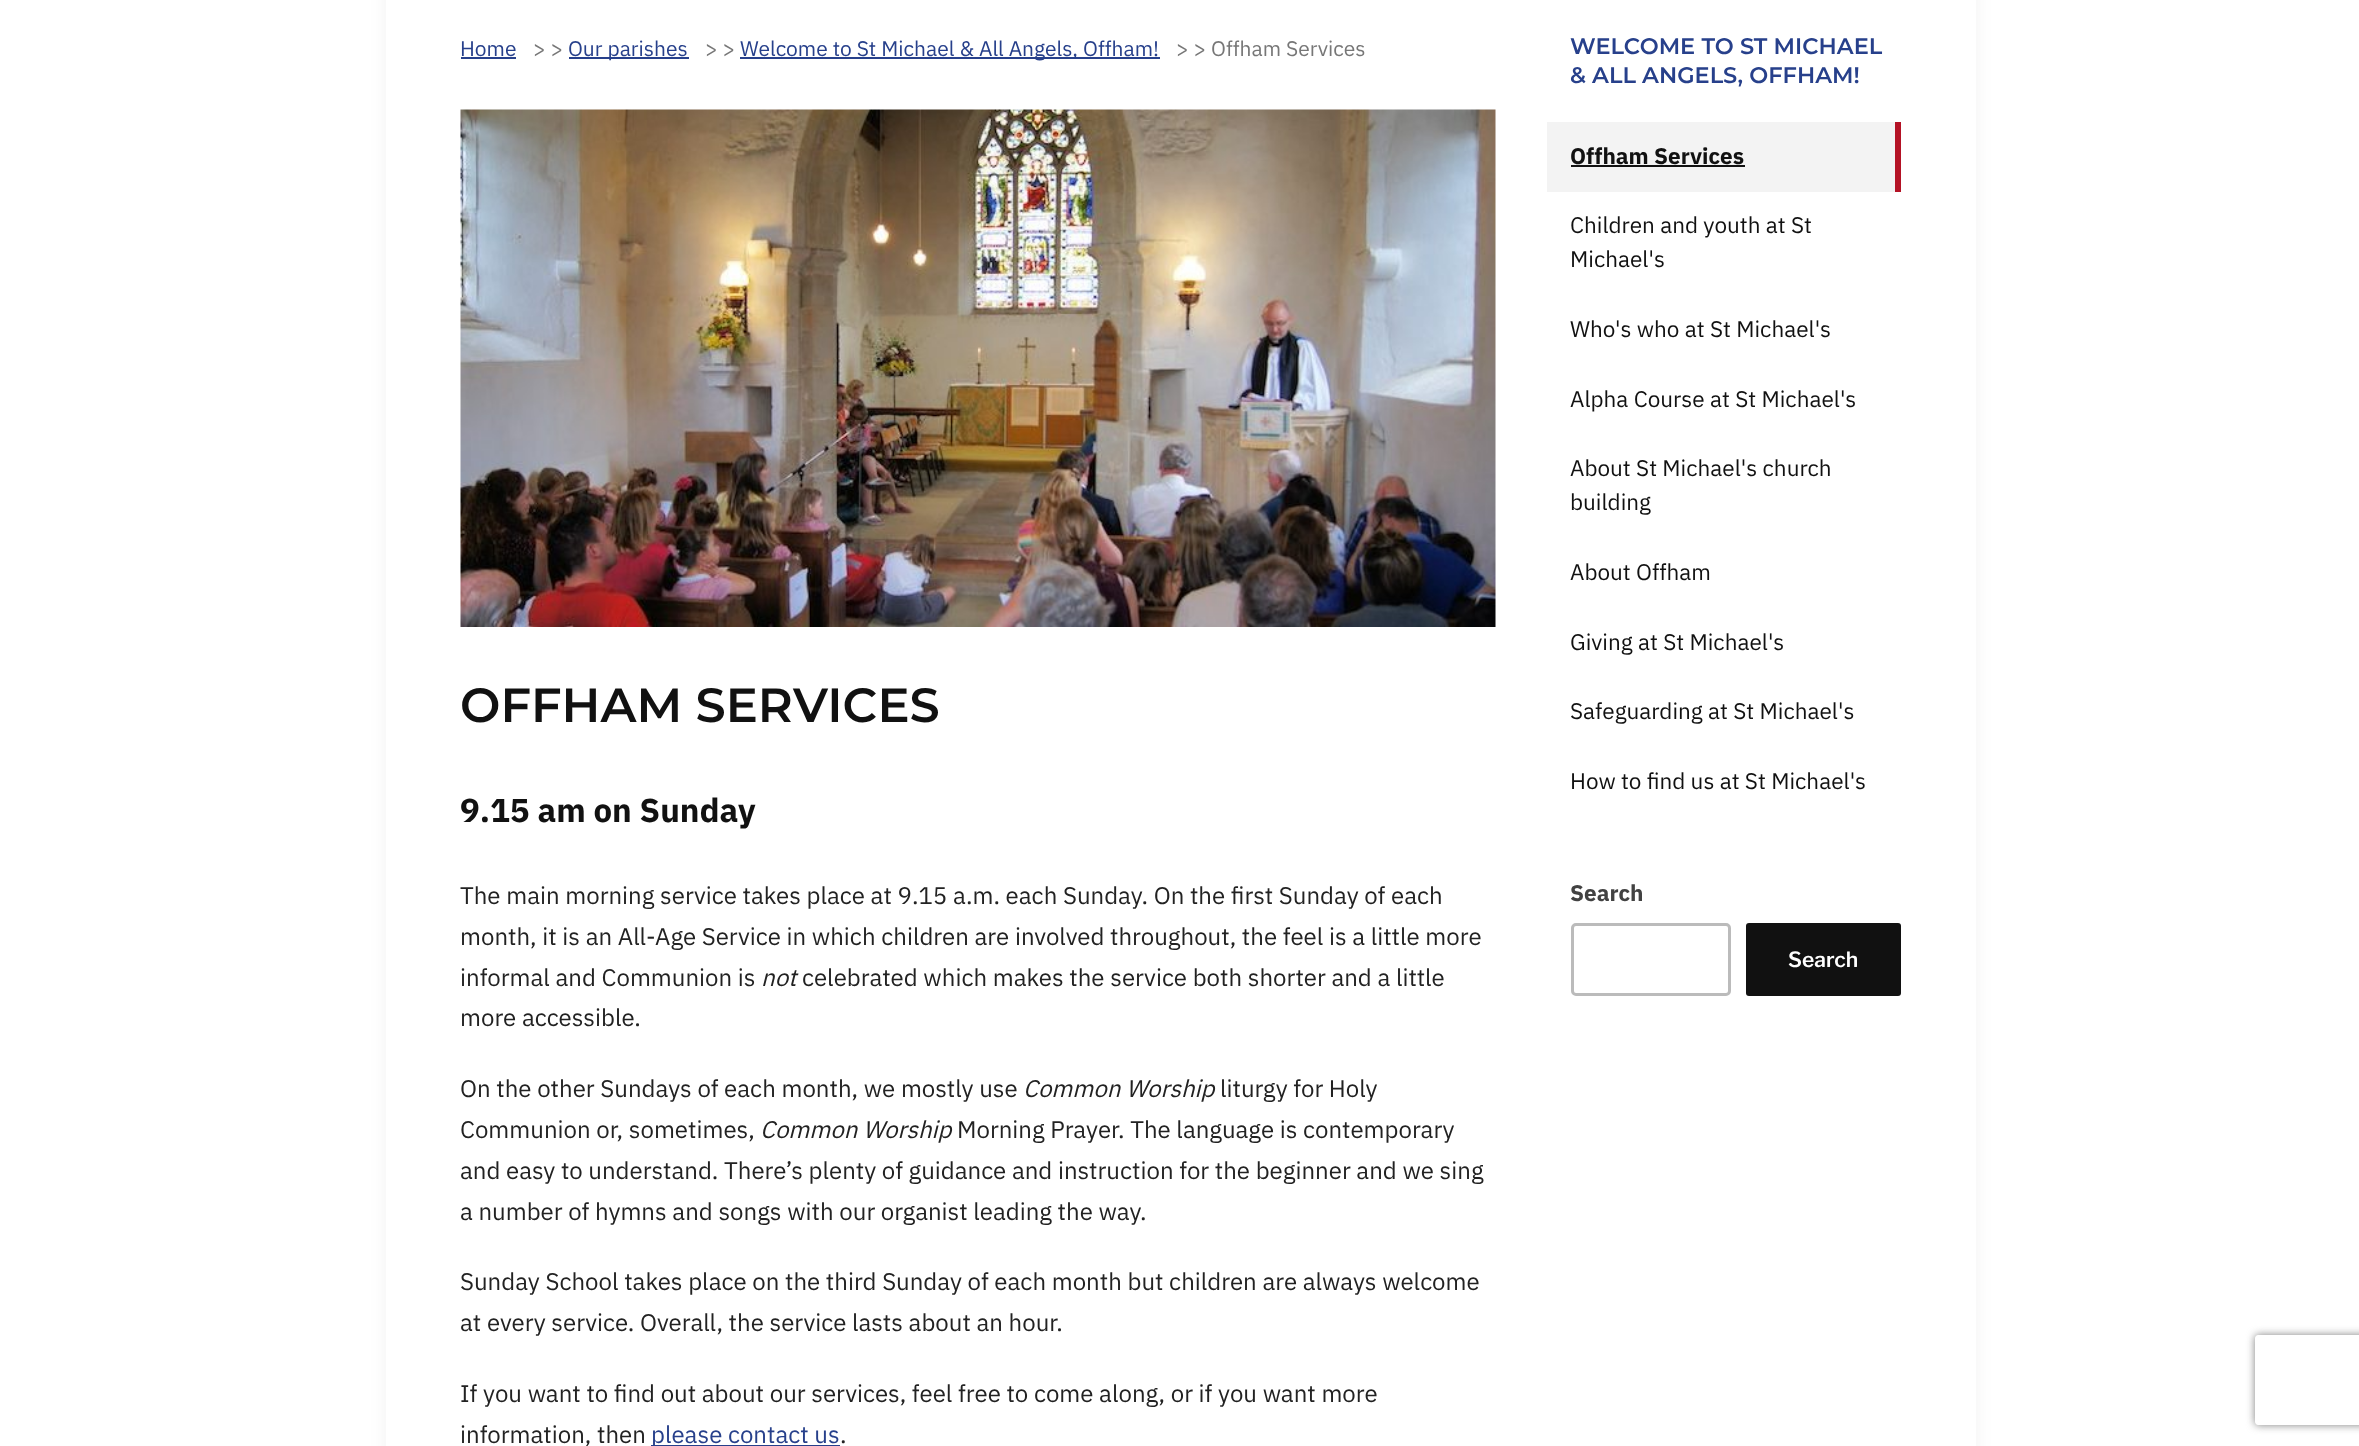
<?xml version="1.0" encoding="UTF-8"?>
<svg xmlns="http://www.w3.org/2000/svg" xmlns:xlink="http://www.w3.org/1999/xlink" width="2359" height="1446">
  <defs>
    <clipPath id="clip1"><path d="M 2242 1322 h 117 v 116 h -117 z m 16 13 h 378 c 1.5 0 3 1.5 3 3 v 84 c 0 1.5 -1.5 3 -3 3 h -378 c -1.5 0 -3 -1.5 -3 -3 v -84 c 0 -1.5 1.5 -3 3 -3 z" clip-rule="evenodd" /></clipPath>
  </defs>
  <rect width="100%" height="100%" fill="#ffffff" />
  <rect x="386" y="-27" width="1590" height="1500" fill="#000000" fill-opacity="0.05" filter="blur(9px)" />
  <rect x="386" width="1590" height="1446" fill="#ffffff" />
  <rect x="461" y="57" width="55" height="2" fill="#27408b" />
  <rect x="569" y="57" width="120" height="2" fill="#27408b" />
  <rect x="740" y="57" width="420" height="2" fill="#27408b" />
  <image x="460" y="109" width="1036" height="518" xlink:href="image1.png" />
  <rect x="651" y="1445" width="189" height="1" fill="#27408b" />
  <rect x="1547" y="122" width="348" height="70" fill="#f3f3f3" />
  <rect x="1895" y="122" width="6" height="70" fill="#b41225" />
  <rect x="1571" y="165" width="174" height="2" fill="#111111" />
  <rect x="1572.5" y="924.5" width="157" height="70" rx="3.5" fill="none" stroke="#bbbbbb" stroke-width="3" />
  <rect x="1746" y="923" width="155" height="73" rx="3" fill="#111111" />
  <g clip-path="url(#clip1)">
    <rect x="2255" y="1335" width="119" height="90" rx="3" fill="#808080" filter="blur(4px)" />
  </g>
  <text x="460" y="56" style="font-family: IBM Plex Sans; font-size: 21px; fill: #27408b">Home</text>
  <text x="533" y="56" style="font-family: IBM Plex Sans; font-size: 21px; fill: #777777">&gt; &gt;</text>
  <text x="568" y="56" style="font-family: IBM Plex Sans; font-size: 21px; fill: #27408b">Our parishes</text>
  <text x="705" y="56" style="font-family: IBM Plex Sans; font-size: 21px; fill: #777777">&gt; &gt;</text>
  <text x="740" y="56" style="font-family: IBM Plex Sans; font-size: 21px; fill: #27408b">Welcome to St Michael &amp; All Angels, Offham!</text>
  <text x="1176" y="56" style="font-family: IBM Plex Sans; font-size: 21px; fill: #777777">&gt; &gt; Offham Services</text>
  <text x="460" y="722" style="font-family: Montserrat; font-size: 48px; font-weight: 600; fill: #111111">OFFHAM SERVICES</text>
  <text x="460" y="822" style="font-family: IBM Plex Sans; font-size: 33px; font-weight: bold; fill: #111111">9.15 am on Sunday</text>
  <text x="460" y="904" style="font-family: IBM Plex Sans; font-size: 24px; fill: #222222">The main morning service takes place at 9.15 a.m. each Sunday. On the first Sunday of each</text>
  <text x="460" y="945" style="font-family: IBM Plex Sans; font-size: 24px; fill: #222222">month, it is an All-Age Service in which children are involved throughout, the feel is a little more</text>
  <text x="460" y="986" style="font-family: IBM Plex Sans; font-size: 24px; fill: #222222">informal and Communion is</text>
  <text x="761" y="986" style="font-family: IBM Plex Sans; font-size: 24px; font-style: italic; fill: #222222">not</text>
  <text x="802" y="986" style="font-family: IBM Plex Sans; font-size: 24px; fill: #222222">celebrated which makes the service both shorter and a little</text>
  <text x="460" y="1026" style="font-family: IBM Plex Sans; font-size: 24px; fill: #222222">more accessible.</text>
  <text x="460" y="1097" style="font-family: IBM Plex Sans; font-size: 24px; fill: #222222">On the other Sundays of each month, we mostly use</text>
  <text x="1023" y="1097" style="font-family: IBM Plex Sans; font-size: 24px; font-style: italic; fill: #222222">Common Worship</text>
  <text x="1220" y="1097" style="font-family: IBM Plex Sans; font-size: 24px; fill: #222222">liturgy for Holy</text>
  <text x="460" y="1138" style="font-family: IBM Plex Sans; font-size: 24px; fill: #222222">Communion or, sometimes,</text>
  <text x="760" y="1138" style="font-family: IBM Plex Sans; font-size: 24px; font-style: italic; fill: #222222">Common Worship</text>
  <text x="957" y="1138" style="font-family: IBM Plex Sans; font-size: 24px; fill: #222222">Morning Prayer. The language is contemporary</text>
  <text x="460" y="1179" style="font-family: IBM Plex Sans; font-size: 24px; fill: #222222">and easy to understand. There’s plenty of guidance and instruction for the beginner and we sing</text>
  <text x="460" y="1220" style="font-family: IBM Plex Sans; font-size: 24px; fill: #222222">a number of hymns and songs with our organist leading the way.</text>
  <text x="460" y="1290" style="font-family: IBM Plex Sans; font-size: 24px; fill: #222222">Sunday School takes place on the third Sunday of each month but children are always welcome</text>
  <text x="460" y="1331" style="font-family: IBM Plex Sans; font-size: 24px; fill: #222222">at every service. Overall, the service lasts about an hour.</text>
  <text x="460" y="1402" style="font-family: IBM Plex Sans; font-size: 24px; fill: #222222">If you want to find out about our services, feel free to come along, or if you want more</text>
  <text x="460" y="1443" style="font-family: IBM Plex Sans; font-size: 24px; fill: #222222">information, then</text>
  <text x="651" y="1443" style="font-family: IBM Plex Sans; font-size: 24px; fill: #27408b">please contact us</text>
  <text x="840" y="1443" style="font-family: IBM Plex Sans; font-size: 24px; fill: #222222">.</text>
  <text x="1570" y="54" style="font-family: Montserrat; font-size: 22.5px; font-weight: 600; fill: #27408b">WELCOME TO ST MICHAEL</text>
  <text x="1570" y="83" style="font-family: Montserrat; font-size: 22.5px; font-weight: 600; fill: #27408b">&amp; ALL ANGELS, OFFHAM!</text>
  <text x="1570" y="164" style="font-family: IBM Plex Sans; font-size: 22.5px; font-weight: bold; fill: #111111">Offham Services</text>
  <text x="1570" y="233" style="font-family: IBM Plex Sans; font-size: 22.5px; fill: #111111">Children and youth at St</text>
  <text x="1570" y="267" style="font-family: IBM Plex Sans; font-size: 22.5px; fill: #111111">Michael's</text>
  <text x="1570" y="337" style="font-family: IBM Plex Sans; font-size: 22.5px; fill: #111111">Who's who at St Michael's</text>
  <text x="1570" y="407" style="font-family: IBM Plex Sans; font-size: 22.5px; fill: #111111">Alpha Course at St Michael's</text>
  <text x="1570" y="476" style="font-family: IBM Plex Sans; font-size: 22.5px; fill: #111111">About St Michael's church</text>
  <text x="1570" y="510" style="font-family: IBM Plex Sans; font-size: 22.5px; fill: #111111">building</text>
  <text x="1570" y="580" style="font-family: IBM Plex Sans; font-size: 22.5px; fill: #111111">About Offham</text>
  <text x="1570" y="650" style="font-family: IBM Plex Sans; font-size: 22.5px; fill: #111111">Giving at St Michael's</text>
  <text x="1570" y="719" style="font-family: IBM Plex Sans; font-size: 22.5px; fill: #111111">Safeguarding at St Michael's</text>
  <text x="1570" y="789" style="font-family: IBM Plex Sans; font-size: 22.5px; fill: #111111">How to find us at St Michael's</text>
  <text x="1570" y="901" style="font-family: IBM Plex Sans; font-size: 22.5px; font-weight: bold; fill: #424242">Search</text>
  <text x="1788" y="967" style="font-family: Libre Franklin; font-size: 21px; font-weight: 600; fill: #ffffff">Search</text>
</svg>
